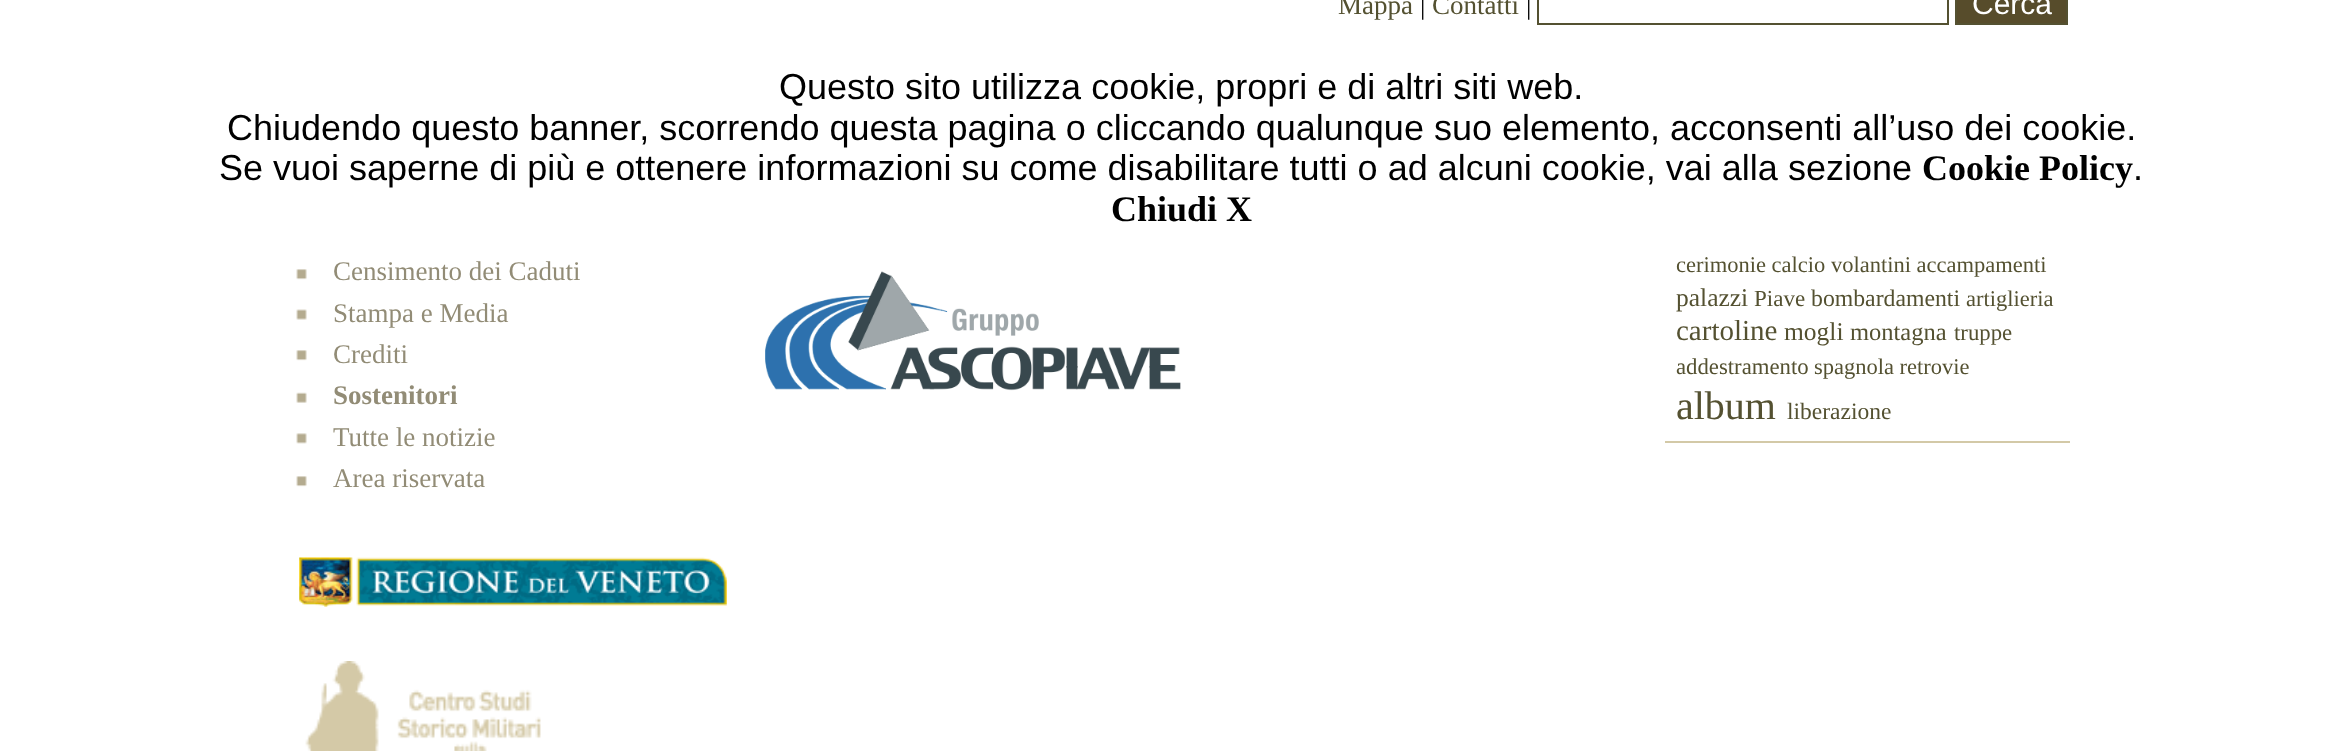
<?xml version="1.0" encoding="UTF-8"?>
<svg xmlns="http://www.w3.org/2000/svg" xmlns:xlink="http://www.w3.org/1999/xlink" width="2334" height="751">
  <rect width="100%" height="100%" fill="#ffffff" />
  <rect x="1538" y="-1" width="410" height="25" fill="none" stroke="#545131" stroke-width="2" />
  <rect x="1956" y="-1" width="111" height="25" fill="#574c2b" stroke="#545131" stroke-width="2" />
  <image x="296" y="269" width="11" height="11" xlink:href="image1.png" />
  <image x="296" y="309" width="11" height="11" xlink:href="image2.png" />
  <image x="296" y="350" width="11" height="11" xlink:href="image1.png" />
  <image x="296" y="392" width="11" height="11" xlink:href="image3.png" />
  <image x="296" y="433" width="11" height="11" xlink:href="image4.png" />
  <image x="296" y="476" width="11" height="11" xlink:href="image1.png" />
  <image x="299" y="557" width="428" height="50" xlink:href="image5.png" />
  <image x="305" y="661" width="236" height="90" xlink:href="image6.png" />
  <image x="765" y="271" width="416" height="120" xlink:href="image7.png" />
  <rect x="1665" y="441" width="405" height="2" fill="#d3c9a7" />
  <text x="1338" y="14" style="font-family: Liberation Serif; font-size: 27px; fill: #545131">Mappa</text>
  <text x="1420" y="14" style="font-family: Liberation Serif; font-size: 27px; fill: #000000">|</text>
  <text x="1432" y="14" style="font-family: Liberation Serif; font-size: 27px; fill: #545131">Contatti</text>
  <text x="1526" y="14" style="font-family: Liberation Serif; font-size: 27px; fill: #000000">|</text>
  <text x="1972" y="14" style="font-family: Liberation Sans; font-size: 30px; fill: #ffffff">Cerca</text>
  <text x="333" y="280" style="font-family: Liberation Serif; font-size: 27px; fill: #928c76">Censimento dei Caduti</text>
  <text x="333" y="322" style="font-family: Liberation Serif; font-size: 27px; fill: #928c76">Stampa e Media</text>
  <text x="333" y="363" style="font-family: Liberation Serif; font-size: 27px; fill: #928c76">Crediti</text>
  <text x="333" y="404" style="font-family: Liberation Serif; font-size: 27px; font-weight: bold; fill: #928c76">Sostenitori</text>
  <text x="333" y="446" style="font-family: Liberation Serif; font-size: 27px; fill: #928c76">Tutte le notizie</text>
  <text x="333" y="487" style="font-family: Liberation Serif; font-size: 27px; fill: #928c76">Area riservata</text>
  <text x="1676" y="272" style="font-family: Liberation Serif; font-size: 22.5px; fill: #545131">cerimonie calcio volantini accampamenti</text>
  <text x="1676" y="306" style="font-family: Liberation Serif; font-size: 25.5px; fill: #545131">palazzi</text>
  <text x="1754" y="306" style="font-family: Liberation Serif; font-size: 23px; fill: #545131">Piave</text>
  <text x="1811" y="306" style="font-family: Liberation Serif; font-size: 23.75px; fill: #545131">bombardamenti</text>
  <text x="1966" y="306" style="font-family: Liberation Serif; font-size: 22.5px; fill: #545131">artiglieria</text>
  <text x="1676" y="340" style="font-family: Liberation Serif; font-size: 29px; fill: #545131">cartoline</text>
  <text x="1784" y="340" style="font-family: Liberation Serif; font-size: 25.5px; fill: #545131">mogli</text>
  <text x="1850" y="340" style="font-family: Liberation Serif; font-size: 24.5px; fill: #545131">montagna</text>
  <text x="1954" y="340" style="font-family: Liberation Serif; font-size: 22.75px; fill: #545131">truppe</text>
  <text x="1676" y="374" style="font-family: Liberation Serif; font-size: 22.75px; fill: #545131">addestramento</text>
  <text x="1814" y="374" style="font-family: Liberation Serif; font-size: 22.5px; fill: #545131">spagnola retrovie</text>
  <text x="1676" y="419" style="font-family: Liberation Serif; font-size: 40px; fill: #545131">album</text>
  <text x="1787" y="419" style="font-family: Liberation Serif; font-size: 23.5px; fill: #545131">liberazione</text>
  <text x="779" y="99" style="font-family: Liberation Sans; font-size: 36px; fill: #000000">Questo sito utilizza cookie, propri e di altri siti web.</text>
  <text x="227" y="140" style="font-family: Liberation Sans; font-size: 36px; fill: #000000">Chiudendo questo banner, scorrendo questa pagina o cliccando qualunque suo elemento, acconsenti all’uso dei cookie.</text>
  <text x="219" y="180" style="font-family: Liberation Sans; font-size: 36px; fill: #000000">Se vuoi saperne di più e ottenere informazioni su come disabilitare tutti o ad alcuni cookie, vai alla sezione</text>
  <text x="1922" y="180" style="font-family: Liberation Serif; font-size: 36px; font-weight: bold; fill: #000000">Cookie Policy</text>
  <text x="2133" y="180" style="font-family: Liberation Sans; font-size: 36px; fill: #000000">.</text>
  <text x="1111" y="221" style="font-family: Liberation Serif; font-size: 36px; font-weight: bold; fill: #000000">Chiudi X</text>
</svg>
